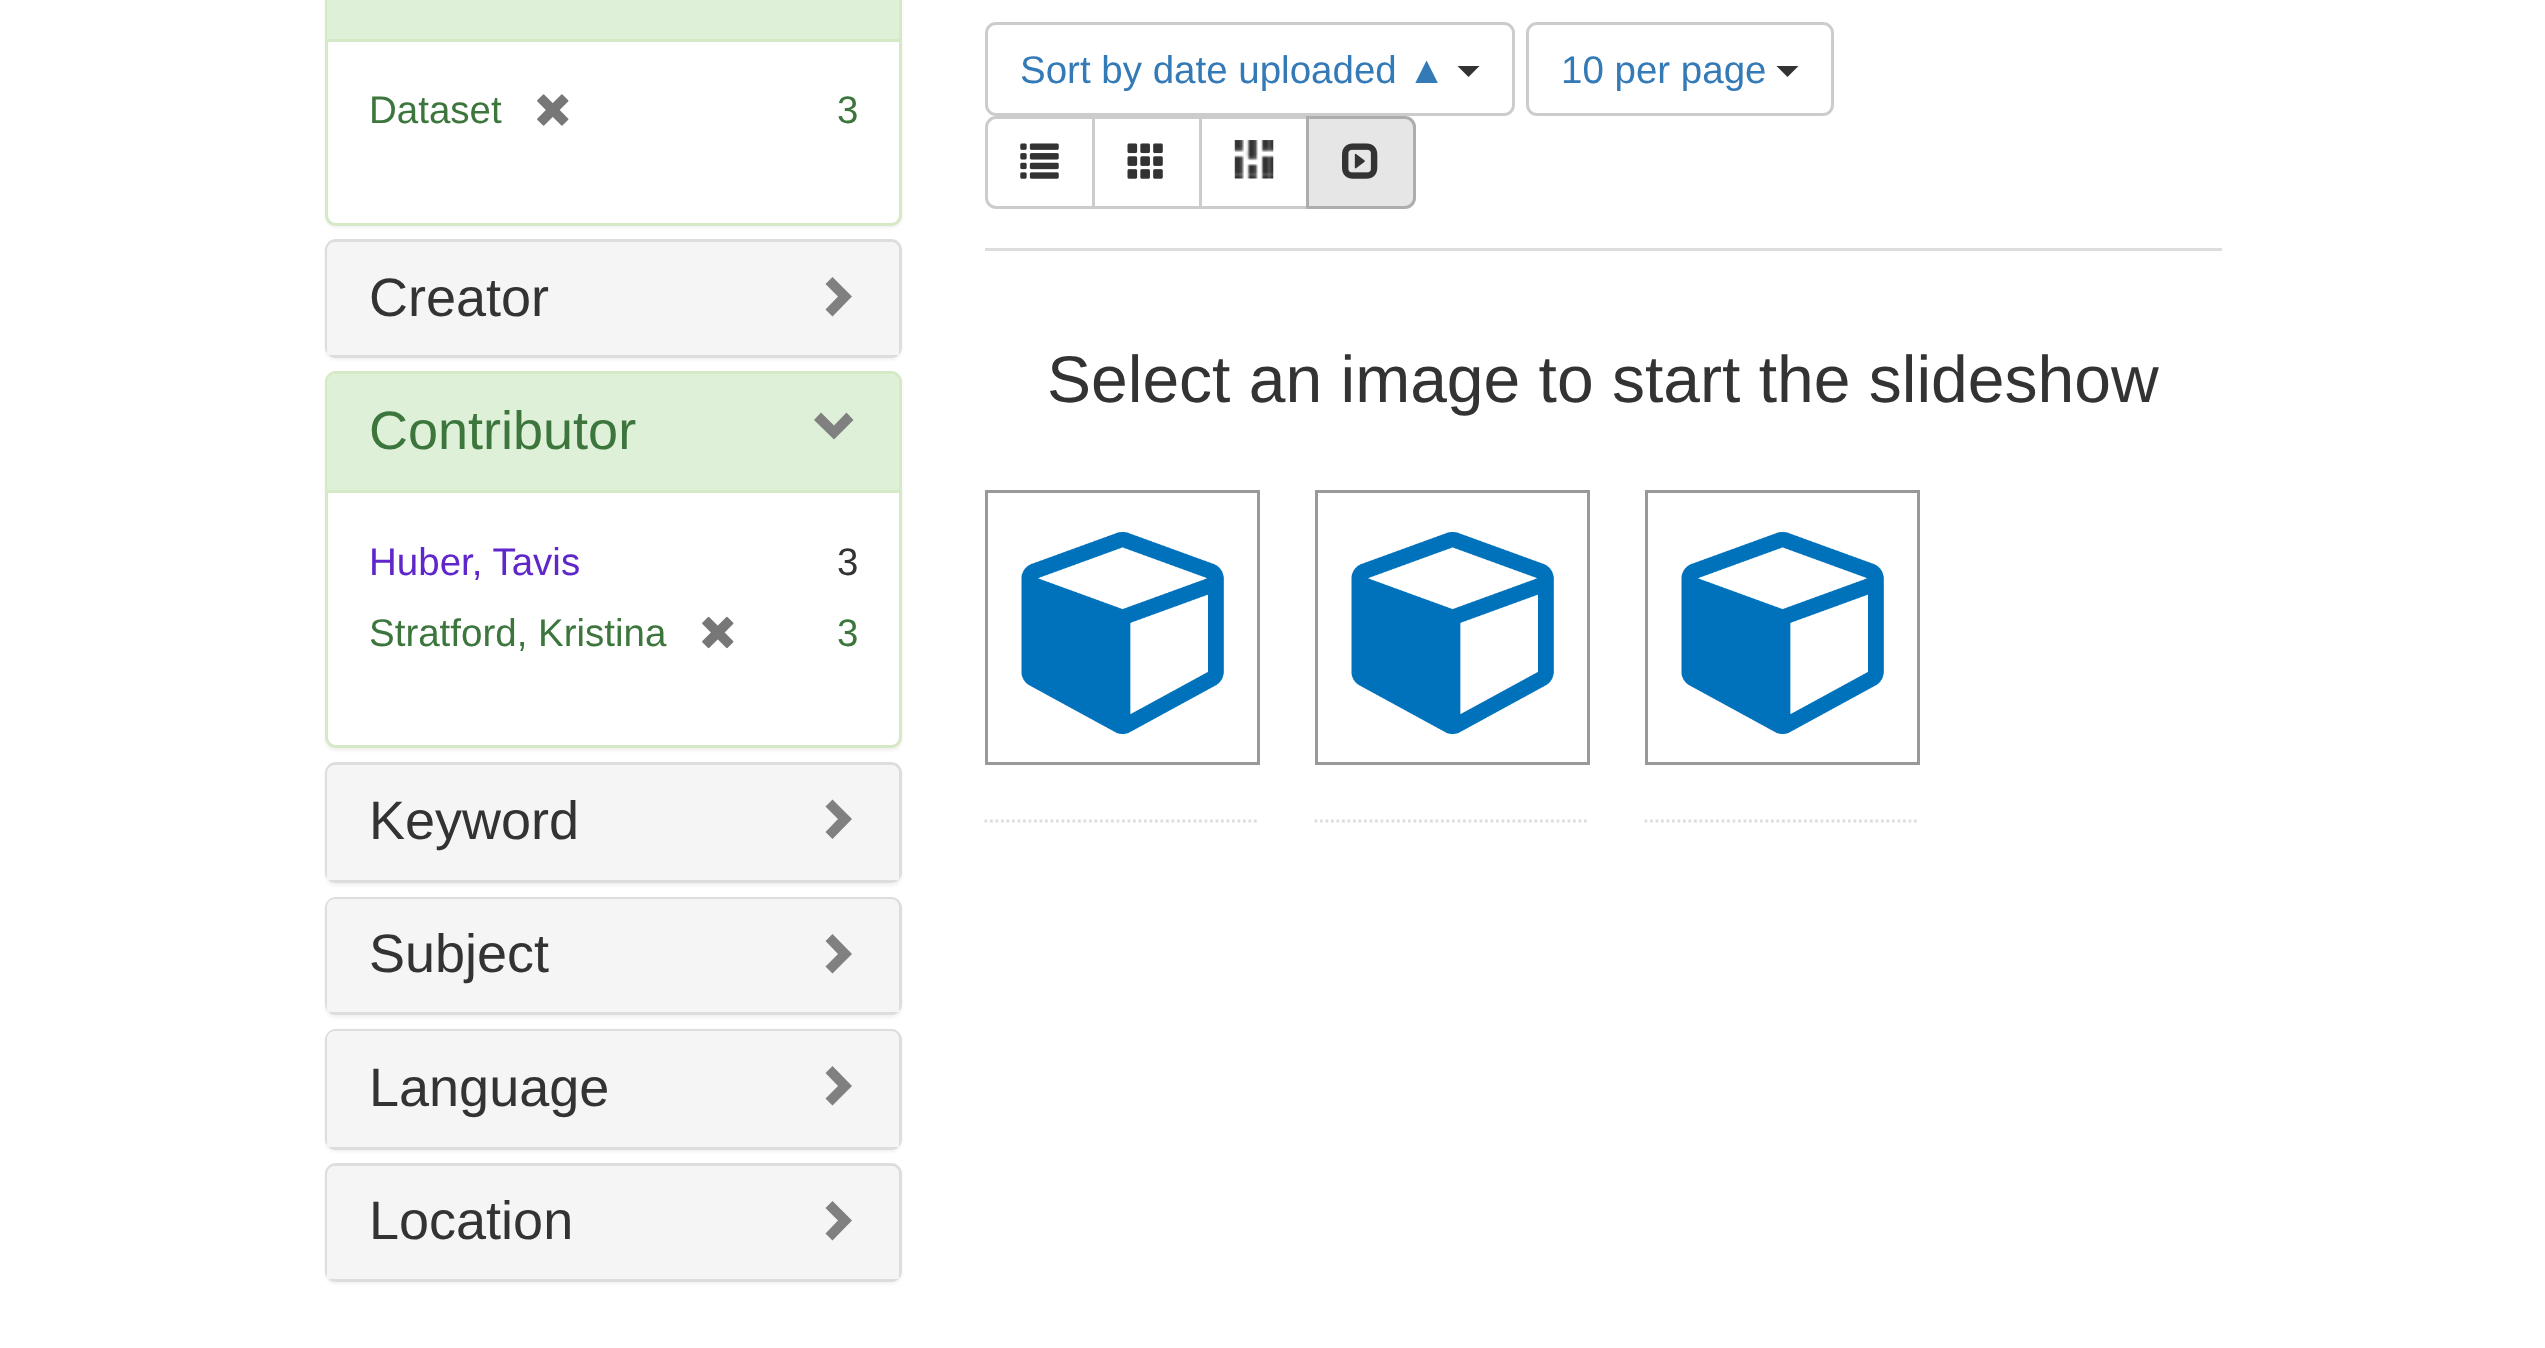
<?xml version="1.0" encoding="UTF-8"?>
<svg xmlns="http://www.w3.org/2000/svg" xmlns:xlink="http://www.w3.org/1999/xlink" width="2545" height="1348">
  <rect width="100%" height="100%" fill="#ffffff" />
  <rect x="325" y="-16" width="577" height="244" rx="11" fill="#000000" fill-opacity="0.05" filter="blur(1.5px)" />
  <rect x="326.5" y="-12.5" width="574" height="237" rx="9.5" fill="#ffffff" stroke="#d6e9c6" stroke-width="3" />
  <rect x="327" width="572" height="39" fill="#dff0d8" />
  <rect x="327" y="39" width="572" height="3" fill="#d6e9c6" />
  <image x="537" y="94" width="32" height="32" xlink:href="image1.png" />
  <rect x="325" y="242" width="577" height="118" rx="11" fill="#000000" fill-opacity="0.05" filter="blur(1.5px)" />
  <rect x="326.5" y="240.5" width="574" height="116" rx="9.5" fill="none" stroke="#dddddd" stroke-width="3" />
  <path d="M 335 242 h 556 c 4.5 0 8 3.5 8 8 v 105 h -572 v -105 c 0 -4.5 3.5 -8 8 -8 z" fill="#f5f5f5" />
  <path d="M 852 296.5 l -19.5 20 l -7 -7 l 12.5 -13 l -12.5 -12.5 l 7 -7 z" fill="#808080" />
  <rect x="325" y="374" width="577" height="377" rx="11" fill="#000000" fill-opacity="0.05" filter="blur(1.5px)" />
  <rect x="326.5" y="372.5" width="574" height="374" rx="9.5" fill="#ffffff" stroke="#d6e9c6" stroke-width="3" />
  <path d="M 335 374 h 556 c 4.5 0 8 3.5 8 8 v 108 h -572 v -108 c 0 -4.5 3.5 -8 8 -8 z" fill="#dff0d8" />
  <path d="M 853.5 420 l -19.5 19.5 l -20 -19.5 l 7 -7.5 l 13 13 l 12.5 -13 z" fill="#808080" />
  <rect x="327" y="490" width="572" height="3" fill="#d6e9c6" />
  <image x="702" y="616" width="32" height="33" xlink:href="image2.png" />
  <rect x="325" y="765" width="577" height="121" rx="11" fill="#000000" fill-opacity="0.05" filter="blur(1.5px)" />
  <rect x="326.5" y="763.5" width="574" height="118" rx="9.5" fill="none" stroke="#dddddd" stroke-width="3" />
  <path d="M 335 765 h 556 c 4.5 0 8 3.5 8 8 v 107 h -572 v -107 c 0 -4.5 3.5 -8 8 -8 z" fill="#f5f5f5" />
  <path d="M 852 819 l -19.5 20 l -7 -7 l 12.5 -13 l -12.5 -12.5 l 7 -7 z" fill="#808080" />
  <rect x="325" y="899" width="577" height="119" rx="11" fill="#000000" fill-opacity="0.05" filter="blur(1.5px)" />
  <rect x="326.5" y="898.5" width="574" height="115" rx="9.5" fill="none" stroke="#dddddd" stroke-width="3" />
  <path d="M 335 899 h 556 c 4.5 0 8 3.5 8 8 v 105 h -572 v -105 c 0 -4.5 3.5 -8 8 -8 z" fill="#f5f5f5" />
  <path d="M 852 954 l -19.5 19.5 l -7 -7 l 12.5 -12.5 l -12.5 -13 l 7 -7 z" fill="#808080" />
  <rect x="325" y="1031" width="577" height="121" rx="11" fill="#000000" fill-opacity="0.05" filter="blur(1.5px)" />
  <rect x="326.5" y="1030.5" width="574" height="118" rx="9.5" fill="none" stroke="#dddddd" stroke-width="3" />
  <path d="M 335 1031 h 556 c 4.5 0 8 3.5 8 8 v 108 h -572 v -108 c 0 -4.5 3.5 -8 8 -8 z" fill="#f5f5f5" />
  <path d="M 852 1086 l -19.5 19.5 l -7 -7 l 12.5 -12.5 l -12.5 -13 l 7 -7 z" fill="#808080" />
  <rect x="325" y="1166" width="577" height="118" rx="11" fill="#000000" fill-opacity="0.05" filter="blur(1.5px)" />
  <rect x="326.5" y="1164.5" width="574" height="116" rx="9.5" fill="none" stroke="#dddddd" stroke-width="3" />
  <path d="M 335 1166 h 556 c 4.5 0 8 3.5 8 8 v 105 h -572 v -105 c 0 -4.5 3.5 -8 8 -8 z" fill="#f5f5f5" />
  <path d="M 852 1220.5 l -19.5 20 l -7 -7 l 12.5 -13 l -12.5 -12.5 l 7 -7 z" fill="#808080" />
  <rect x="985" y="248" width="1237" height="3" fill="#dddddd" />
  <rect x="986.5" y="23.5" width="527" height="91" rx="9.5" fill="none" stroke="#cccccc" stroke-width="3" />
  <path d="M 1457.5 66 h 22 l -11 11 z" fill="#333333" />
  <rect x="1527.5" y="23.5" width="305" height="91" rx="9.5" fill="none" stroke="#cccccc" stroke-width="3" />
  <path d="M 1776.5 66 h 22 l -11 11 z" fill="#333333" />
  <path d="M 996 117.5 h 97.5 v 90 h -97.5 c -5 0 -9.5 -4.5 -9.5 -9.5 v -71 c 0 -5 4.5 -9.5 9.5 -9.5 z" fill="none" stroke="#cccccc" stroke-width="3" />
  <image x="1020" y="143" width="39" height="36" xlink:href="image3.png" />
  <rect x="1093.5" y="117.5" width="107" height="90" fill="none" stroke="#cccccc" stroke-width="3" />
  <image x="1127" y="143" width="36" height="36" xlink:href="image4.png" />
  <rect x="1200.5" y="117.5" width="107" height="90" fill="none" stroke="#cccccc" stroke-width="3" />
  <image x="1234" y="140" width="40" height="39" xlink:href="image5.png" />
  <path d="M 1307.5 117.5 h 97.5 c 5 0 9.5 4.5 9.5 9.5 v 71 c 0 5 -4.5 9.5 -9.5 9.5 h -97.5 z" fill="#e6e6e6" stroke="#adadad" stroke-width="3" />
  <image x="1342" y="143" width="36" height="36" xlink:href="image6.png" />
  <path d="M 984.5 821 h 275" fill="none" stroke="#dddddd" stroke-width="2.8" stroke-dasharray="2.75 2.75" />
  <rect x="986.5" y="491.5" width="272" height="272" fill="none" stroke="#999999" stroke-width="3" />
  <image x="1021" y="532" width="203" height="202" xlink:href="image7.png" />
  <path d="M 1314.5 821 h 275" fill="none" stroke="#dddddd" stroke-width="2.8" stroke-dasharray="2.75 2.75" />
  <rect x="1316.5" y="491.5" width="272" height="272" fill="none" stroke="#999999" stroke-width="3" />
  <image x="1351" y="532" width="203" height="202" xlink:href="image8.png" />
  <path d="M 1644.5 821 h 275" fill="none" stroke="#dddddd" stroke-width="2.8" stroke-dasharray="2.75 2.75" />
  <rect x="1646.5" y="491.5" width="272" height="272" fill="none" stroke="#999999" stroke-width="3" />
  <image x="1681" y="532" width="203" height="202" xlink:href="image8.png" />
  <text x="369" y="123" style="font-family: Liberation Sans; font-size: 38.5px; fill: #3c763d">Dataset</text>
  <text x="837" y="123" style="font-family: Liberation Sans; font-size: 38.5px; fill: #3c763d">3</text>
  <text x="369" y="316" style="font-family: Liberation Sans; font-size: 54px; fill: #333333">Creator</text>
  <text x="369" y="449" style="font-family: Liberation Sans; font-size: 54px; fill: #3c763d">Contributor</text>
  <text x="369" y="575" style="font-family: Liberation Sans; font-size: 38.5px; fill: #5f26c9">Huber, Tavis</text>
  <text x="837" y="575" style="font-family: Liberation Sans; font-size: 38.5px; fill: #333333">3</text>
  <text x="369" y="646" style="font-family: Liberation Sans; font-size: 38.5px; fill: #3c763d">Stratford, Kristina</text>
  <text x="837" y="646" style="font-family: Liberation Sans; font-size: 38.5px; fill: #3c763d">3</text>
  <text x="369" y="839" style="font-family: Liberation Sans; font-size: 54px; fill: #333333">Keyword</text>
  <text x="369" y="972" style="font-family: Liberation Sans; font-size: 54px; fill: #333333">Subject</text>
  <text x="369" y="1106" style="font-family: Liberation Sans; font-size: 54px; fill: #333333">Language</text>
  <text x="369" y="1239" style="font-family: Liberation Sans; font-size: 54px; fill: #333333">Location</text>
  <text x="1020" y="83" style="font-family: Liberation Sans; font-size: 38.5px; fill: #337ab7">Sort by date uploaded ▲</text>
  <text x="1561" y="83" style="font-family: Liberation Sans; font-size: 38.5px; fill: #337ab7">10 per page</text>
  <text x="1047" y="402" style="font-family: Liberation Sans; font-size: 66px; fill: #333333">Select an image to start the slideshow</text>
</svg>
